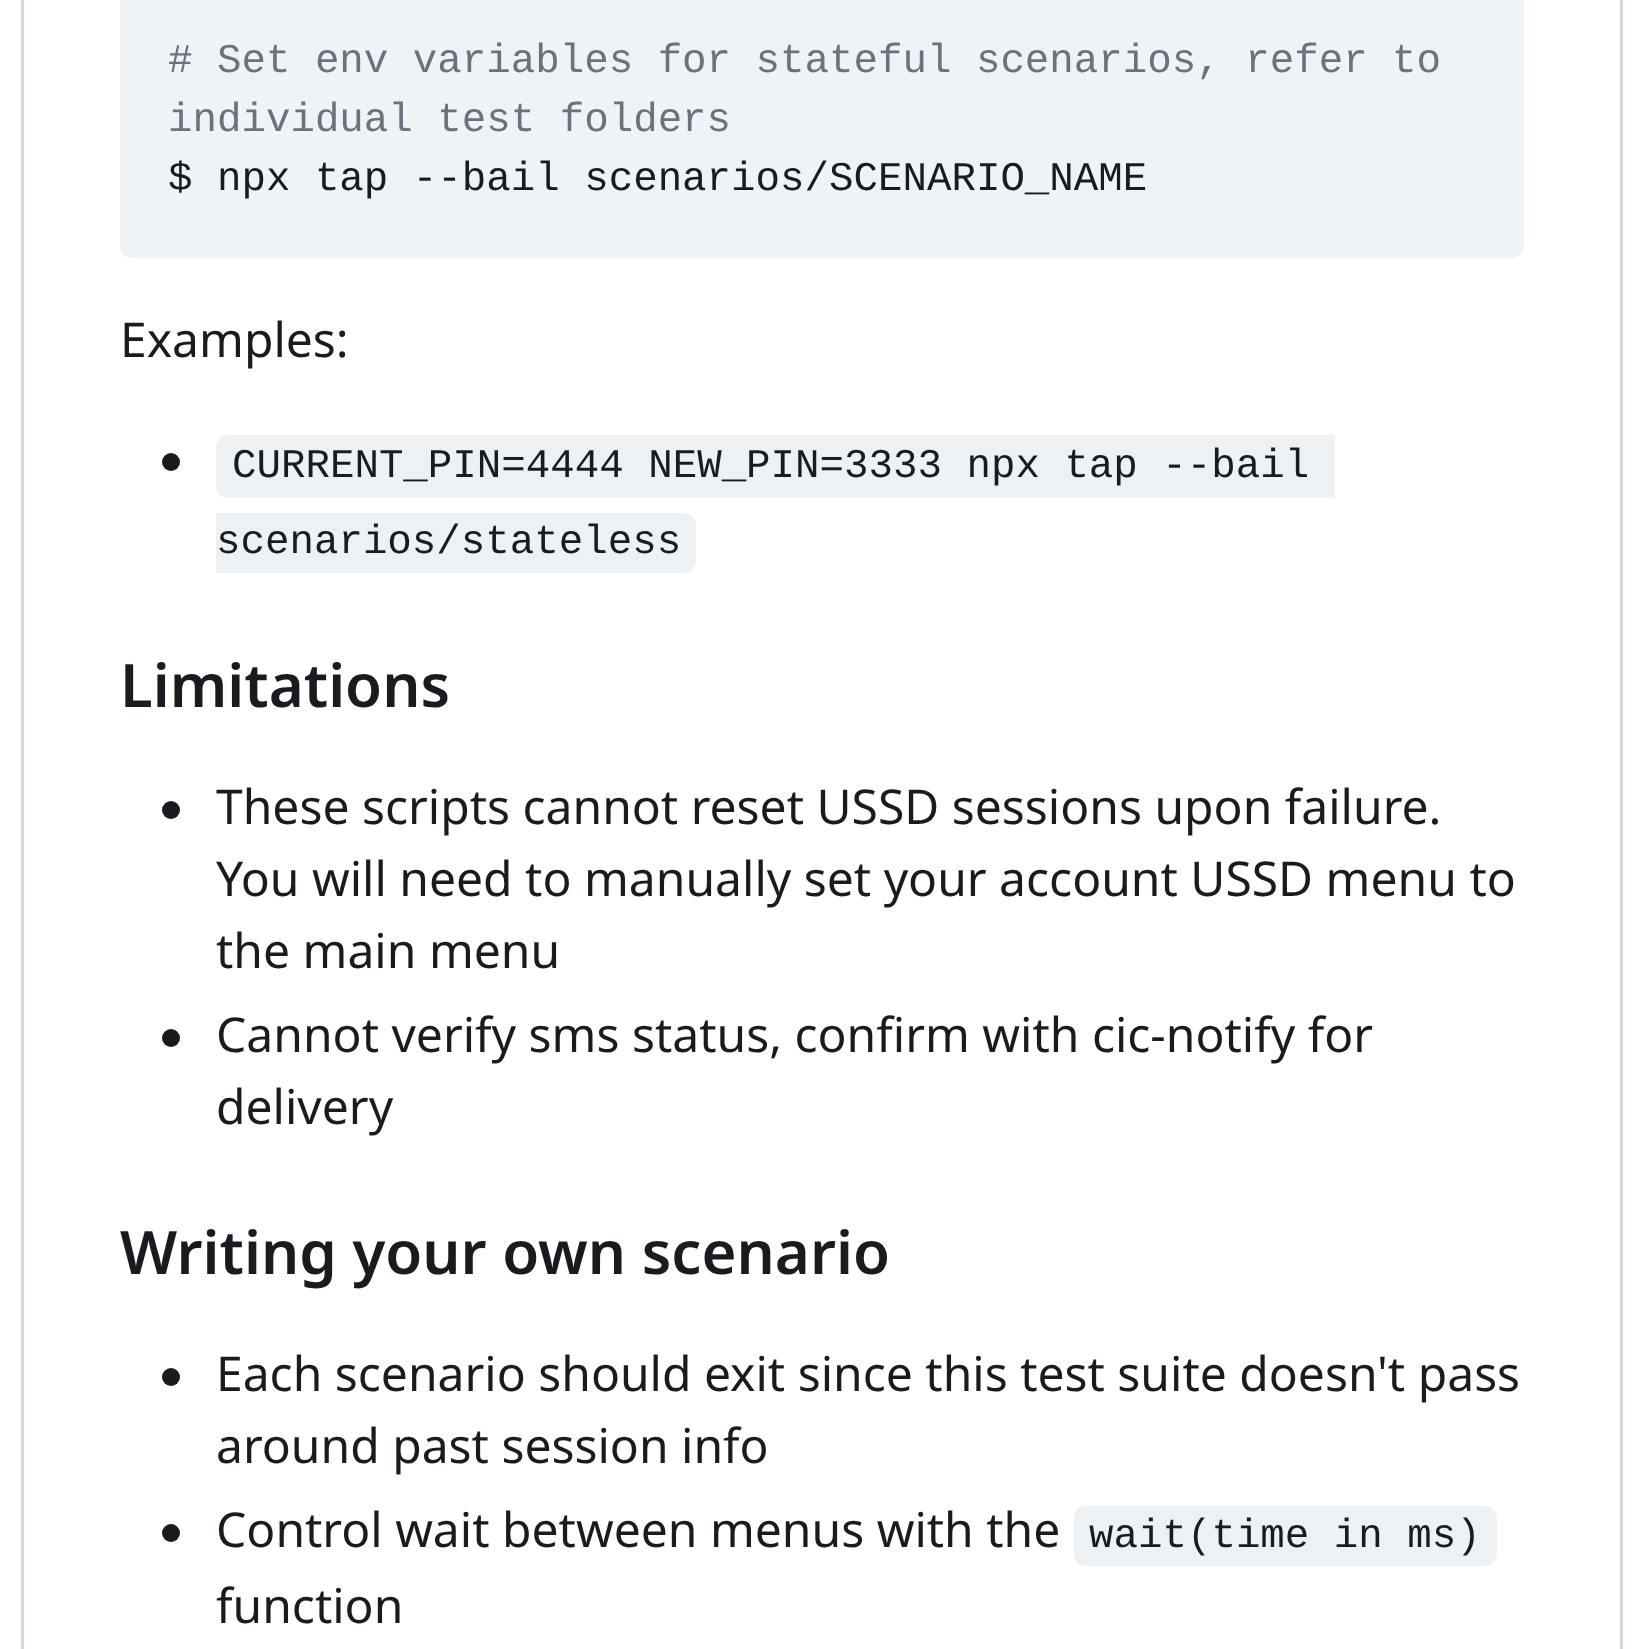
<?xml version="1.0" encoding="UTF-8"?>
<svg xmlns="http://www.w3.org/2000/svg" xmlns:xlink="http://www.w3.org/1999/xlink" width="1642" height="1649">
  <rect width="100%" height="100%" fill="#ffffff" />
  <path d="M 21 -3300 h 1602 v 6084 c 0 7 -5 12 -12 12 h -1578 c -7 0 -12 -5 -12 -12 z m 3 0 h 1596 v 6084 c 0 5 -4 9 -9 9 h -1578 c -5 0 -9 -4 -9 -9 z" fill="#d0d7de" fill-rule="evenodd" />
  <rect x="120" y="-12" width="1404" height="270" rx="12" fill="#f0f3f6" />
  <circle cx="171" cy="462" r="9" fill="#181c21" />
  <path d="M 228 435 h 1107 v 63 h -1107 c -6.5 0 -12 -5.5 -12 -12 v -39 c 0 -6.5 5.5 -12 12 -12 z" fill="#edf1f4" />
  <path d="M 216 513 h 468 c 6.5 0 12 5.5 12 12 v 36 c 0 6.5 -5.5 12 -12 12 h -468 z" fill="#edf1f4" />
  <circle cx="171" cy="810" r="9" fill="#181c21" />
  <circle cx="171" cy="1038" r="9" fill="#181c21" />
  <circle cx="171" cy="1377" r="9" fill="#181c21" />
  <circle cx="171" cy="1533" r="9" fill="#181c21" />
  <rect x="1074" y="1506" width="423" height="60" rx="12" fill="#edf1f4" />
  <text x="168" y="72" style="font-family: Liberation Mono; font-size: 40.8px; fill: #6a737d"># Set env variables for stateful scenarios, refer to</text>
  <text x="168" y="131" style="font-family: Liberation Mono; font-size: 40.8px; fill: #6a737d">individual test folders</text>
  <text x="168" y="190" style="font-family: Liberation Mono; font-size: 40.8px; fill: #181c21">$ npx tap --bail scenarios/SCENARIO_NAME</text>
  <text x="120" y="357" style="font-family: Noto Sans; font-size: 48px; fill: #181c21">Examples:</text>
  <text x="232" y="477" style="font-family: Liberation Mono; font-size: 40.8px; fill: #181c21">CURRENT_PIN=4444 NEW_PIN=3333 npx tap --bail</text>
  <text x="216" y="553" style="font-family: Liberation Mono; font-size: 40.8px; fill: #181c21">scenarios/stateless</text>
  <text x="120" y="707" style="font-family: Noto Sans; font-size: 60px; font-weight: 600; fill: #181c21">Limitations</text>
  <text x="216" y="824" style="font-family: Noto Sans; font-size: 48px; fill: #181c21">These scripts cannot reset USSD sessions upon failure.</text>
  <text x="216" y="896" style="font-family: Noto Sans; font-size: 48px; fill: #181c21">You will need to manually set your account USSD menu to</text>
  <text x="216" y="968" style="font-family: Noto Sans; font-size: 48px; fill: #181c21">the main menu</text>
  <text x="216" y="1052" style="font-family: Noto Sans; font-size: 48px; fill: #181c21">Cannot verify sms status, confirm with cic-notify for</text>
  <text x="216" y="1124" style="font-family: Noto Sans; font-size: 48px; fill: #181c21">delivery</text>
  <text x="120" y="1274" style="font-family: Noto Sans; font-size: 60px; font-weight: 600; fill: #181c21">Writing your own scenario</text>
  <text x="216" y="1391" style="font-family: Noto Sans; font-size: 48px; fill: #181c21">Each scenario should exit since this test suite doesn't pass</text>
  <text x="216" y="1463" style="font-family: Noto Sans; font-size: 48px; fill: #181c21">around past session info</text>
  <text x="216" y="1547" style="font-family: Noto Sans; font-size: 48px; fill: #181c21">Control wait between menus with the</text>
  <text x="1089" y="1547" style="font-family: Liberation Mono; font-size: 40.8px; fill: #181c21">wait(time in ms)</text>
  <text x="216" y="1623" style="font-family: Noto Sans; font-size: 48px; fill: #181c21">function</text>
</svg>
